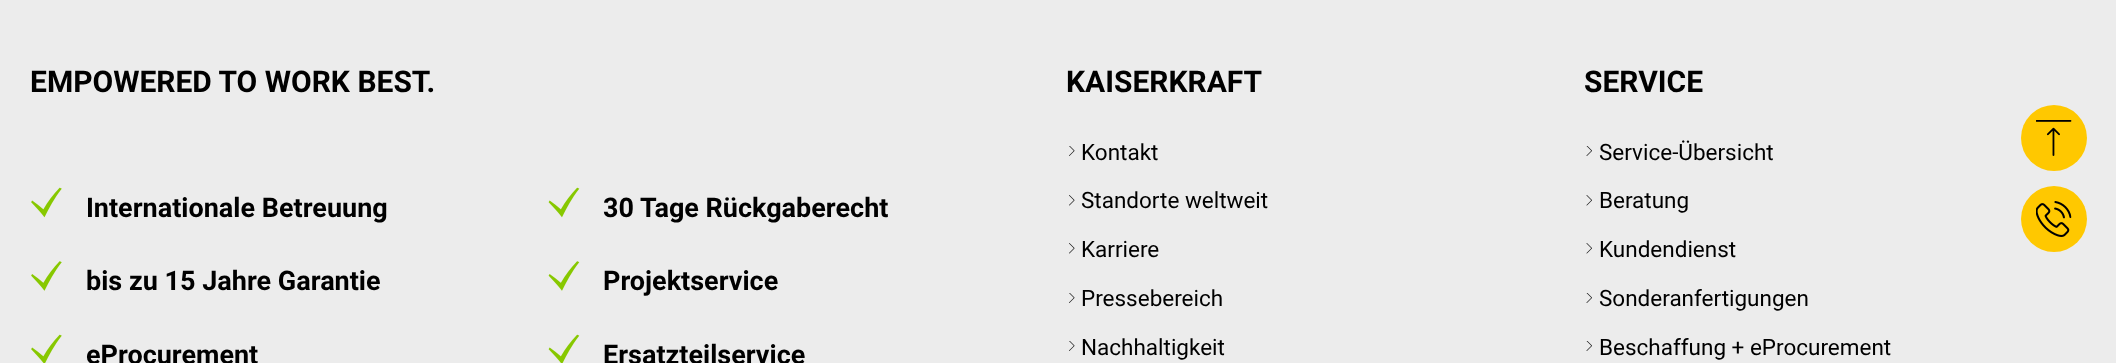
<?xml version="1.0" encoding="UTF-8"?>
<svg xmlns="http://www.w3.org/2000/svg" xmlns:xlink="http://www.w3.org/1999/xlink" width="2116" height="363">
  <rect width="100%" height="100%" fill="#ececec" />
  <image x="31" y="187" width="31" height="31" xlink:href="image1.png" />
  <image x="31" y="261" width="31" height="30" xlink:href="image2.png" />
  <image x="31" y="334" width="31" height="29" xlink:href="image3.png" />
  <image x="548" y="187" width="32" height="31" xlink:href="image4.png" />
  <image x="548" y="261" width="32" height="30" xlink:href="image5.png" />
  <image x="548" y="334" width="32" height="29" xlink:href="image6.png" />
  <image x="1069" y="146" width="6" height="10" xlink:href="image7.png" />
  <image x="1069" y="195" width="6" height="11" xlink:href="image8.png" />
  <image x="1069" y="243" width="6" height="11" xlink:href="image8.png" />
  <image x="1069" y="293" width="6" height="10" xlink:href="image7.png" />
  <image x="1069" y="341" width="6" height="10" xlink:href="image7.png" />
  <image x="1586" y="146" width="6" height="10" xlink:href="image9.png" />
  <image x="1586" y="195" width="6" height="11" xlink:href="image10.png" />
  <image x="1586" y="243" width="6" height="11" xlink:href="image10.png" />
  <image x="1586" y="293" width="6" height="10" xlink:href="image9.png" />
  <image x="1586" y="341" width="6" height="10" xlink:href="image9.png" />
  <circle cx="2054" cy="138" r="33" fill="#ffc800" />
  <image x="2036" y="120" width="36" height="36" xlink:href="image11.png" />
  <circle cx="2054" cy="219" r="33" fill="#ffc800" />
  <image x="2036" y="201" width="36" height="36" xlink:href="image12.png" />
  <text x="30" y="92" style="font-family: Roboto; font-size: 30px; font-weight: bold; fill: #000000">EMPOWERED TO WORK BEST.</text>
  <text x="86" y="217" style="font-family: Roboto; font-size: 27px; font-weight: bold; fill: #000000">Internationale Betreuung</text>
  <text x="86" y="290" style="font-family: Roboto; font-size: 27px; font-weight: bold; fill: #000000">bis zu 15 Jahre Garantie</text>
  <text x="86" y="364" style="font-family: Roboto; font-size: 27px; font-weight: bold; fill: #000000">eProcurement</text>
  <text x="603" y="217" style="font-family: Roboto; font-size: 27px; font-weight: bold; fill: #000000">30 Tage Rückgaberecht</text>
  <text x="603" y="290" style="font-family: Roboto; font-size: 27px; font-weight: bold; fill: #000000">Projektservice</text>
  <text x="603" y="364" style="font-family: Roboto; font-size: 27px; font-weight: bold; fill: #000000">Ersatzteilservice</text>
  <text x="1066" y="92" style="font-family: Roboto; font-size: 30px; font-weight: bold; fill: #000000">KAISERKRAFT</text>
  <text x="1081" y="160" style="font-family: Roboto; font-size: 22.5px; fill: #000000">Kontakt</text>
  <text x="1081" y="208" style="font-family: Roboto; font-size: 22.5px; fill: #000000">Standorte weltweit</text>
  <text x="1081" y="257" style="font-family: Roboto; font-size: 22.5px; fill: #000000">Karriere</text>
  <text x="1081" y="306" style="font-family: Roboto; font-size: 22.5px; fill: #000000">Pressebereich</text>
  <text x="1081" y="355" style="font-family: Roboto; font-size: 22.5px; fill: #000000">Nachhaltigkeit</text>
  <text x="1584" y="92" style="font-family: Roboto; font-size: 30px; font-weight: bold; fill: #000000">SERVICE</text>
  <text x="1599" y="160" style="font-family: Roboto; font-size: 22.5px; fill: #000000">Service-Übersicht</text>
  <text x="1599" y="208" style="font-family: Roboto; font-size: 22.5px; fill: #000000">Beratung</text>
  <text x="1599" y="257" style="font-family: Roboto; font-size: 22.5px; fill: #000000">Kundendienst</text>
  <text x="1599" y="306" style="font-family: Roboto; font-size: 22.5px; fill: #000000">Sonderanfertigungen</text>
  <text x="1599" y="355" style="font-family: Roboto; font-size: 22.5px; fill: #000000">Beschaffung + eProcurement</text>
</svg>
